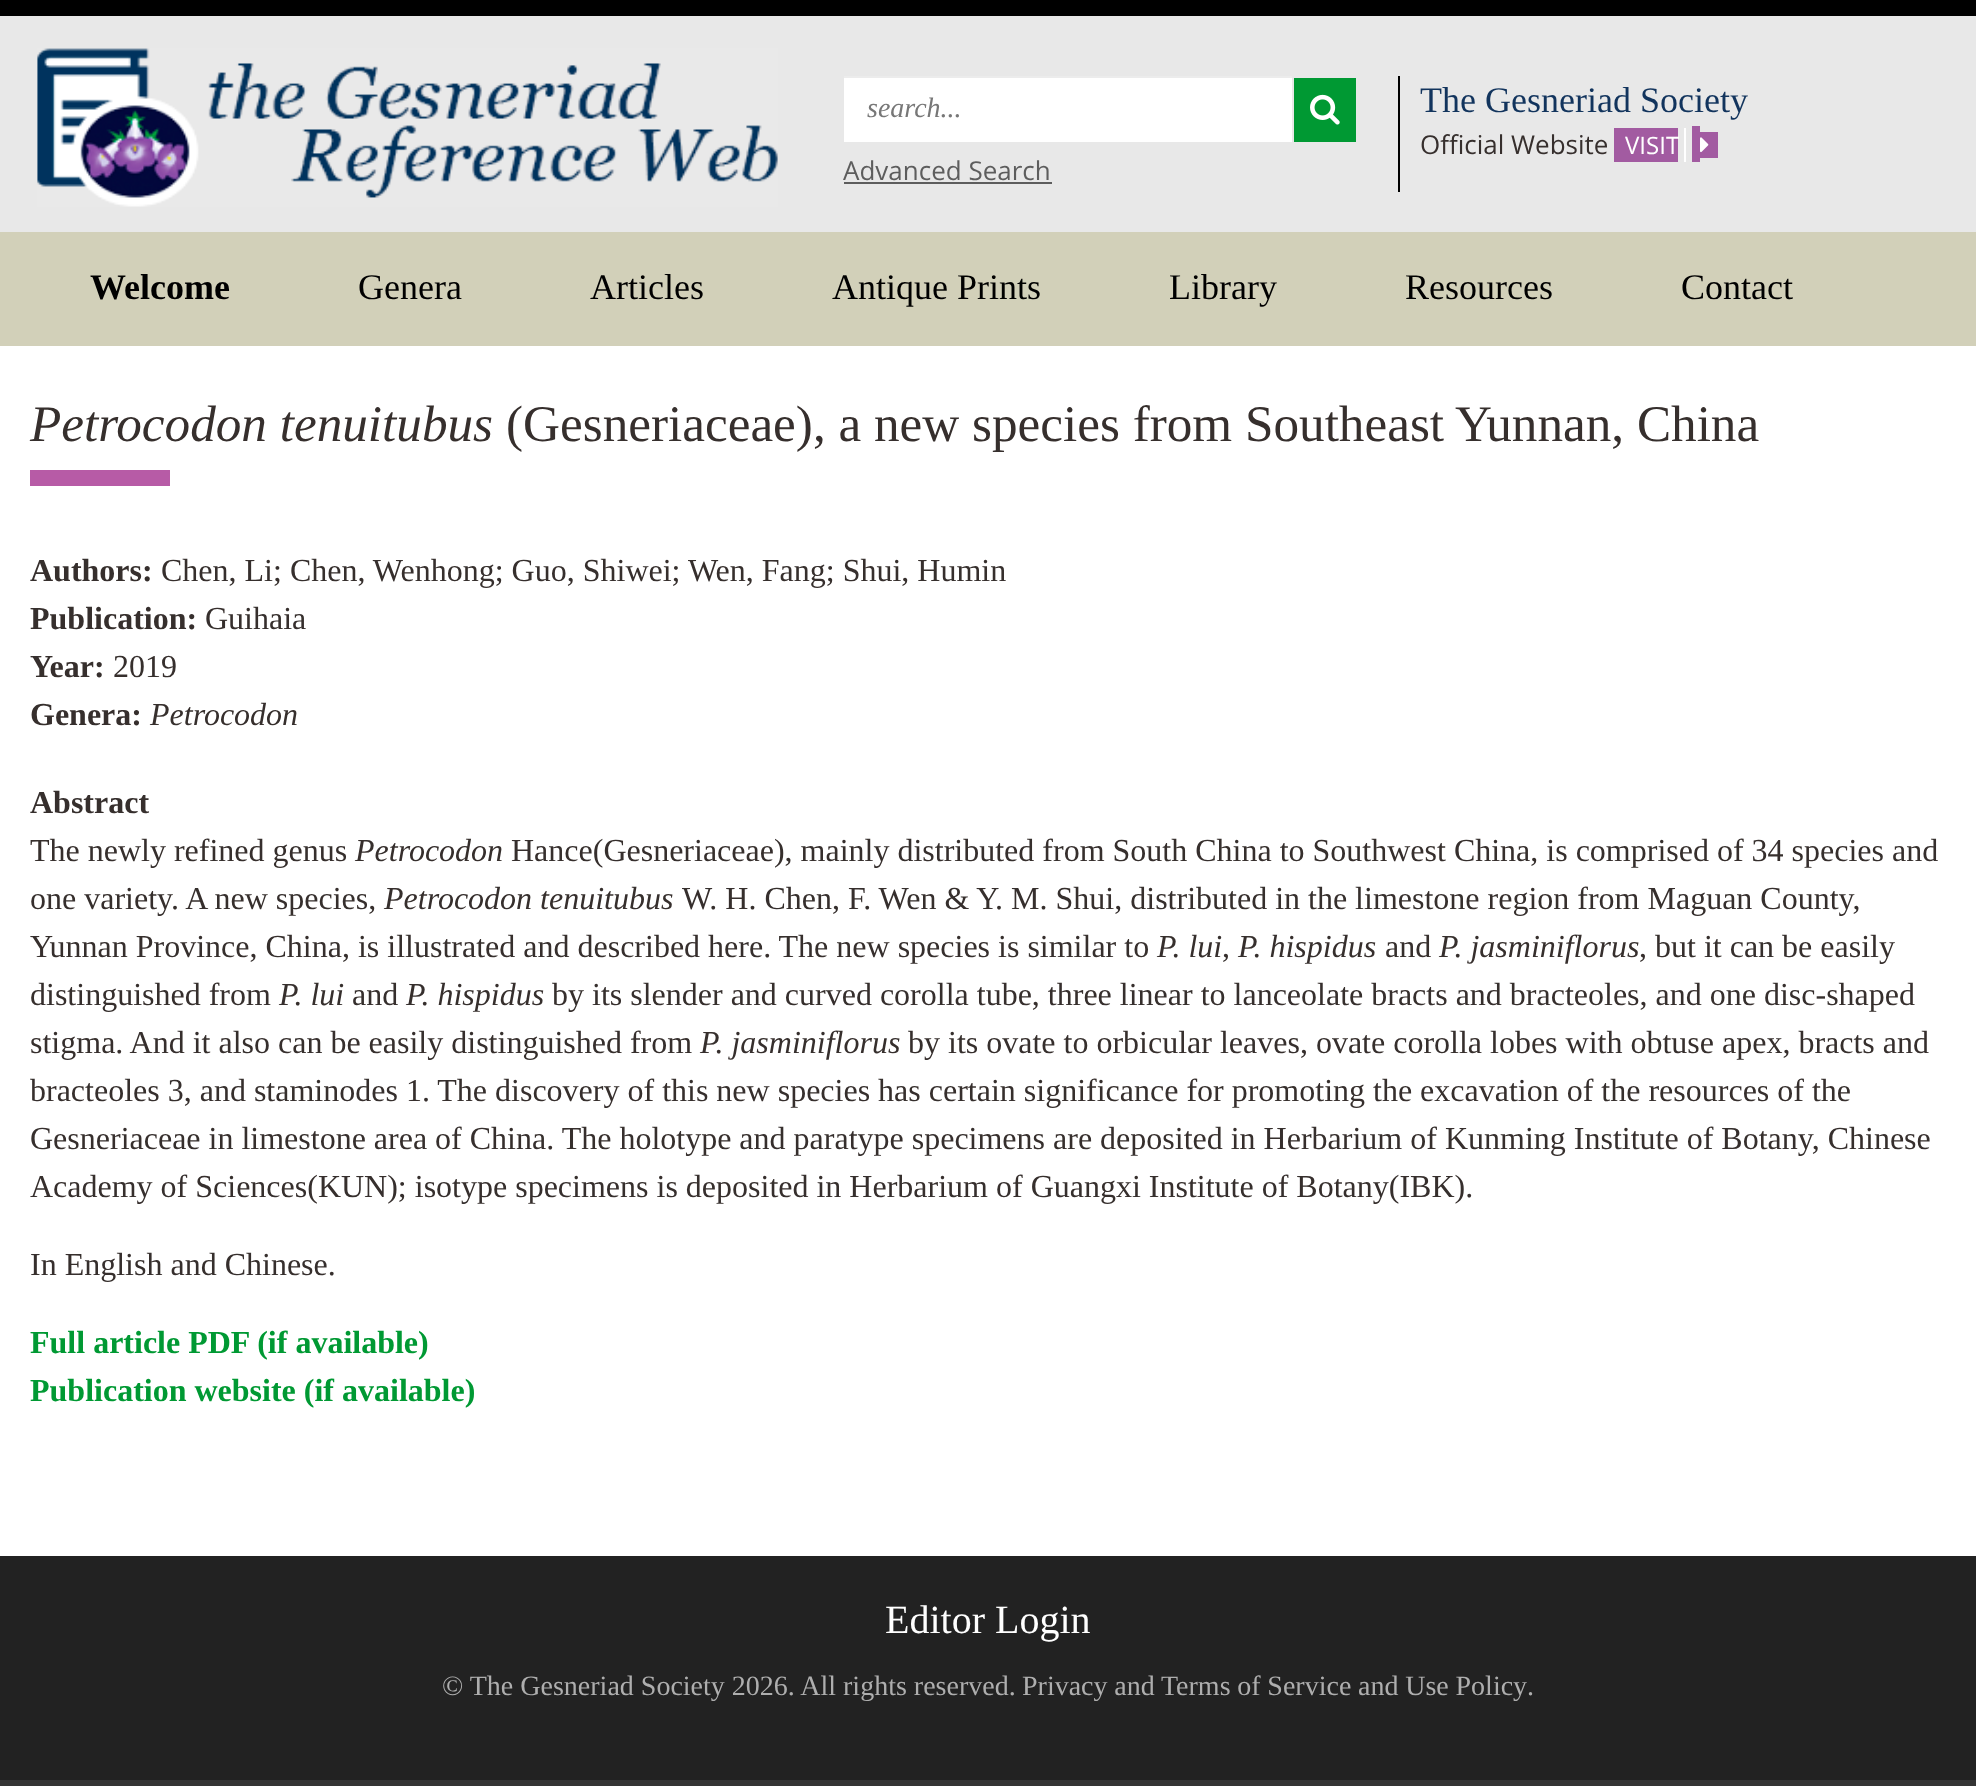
<?xml version="1.0" encoding="UTF-8"?>
<svg xmlns="http://www.w3.org/2000/svg" xmlns:xlink="http://www.w3.org/1999/xlink" width="1976" height="1786">
  <rect width="100%" height="100%" fill="#343434" />
  <rect y="16" width="1976" height="216" fill="#e8e8e8" />
  <rect width="1976" height="16" fill="#000000" />
  <image x="37" y="48" width="741" height="159" xlink:href="image1.png" />
  <rect x="1398" y="76" width="2" height="116" fill="#000000" />
  <rect x="844" y="78" width="448" height="64" fill="#ffffff" />
  <rect x="844" y="76" width="448" height="2" fill="#ececec" />
  <rect x="1294" y="78" width="62" height="64" fill="#009933" />
  <image x="1310" y="94" width="30" height="31" xlink:href="image2.png" />
  <rect x="844" y="182" width="208" height="2" fill="#5d5d5d" />
  <rect x="1614" y="128" width="64" height="34" fill="#a25ba1" />
  <rect x="1692" y="126" width="8" height="36" fill="#a25ba1" />
  <rect x="1700" y="132" width="18" height="26" fill="#a25ba1" />
  <rect x="1684" y="128" width="2" height="34" fill="#ffffff" />
  <image x="1700" y="137" width="9" height="16" xlink:href="image3.png" />
  <rect y="232" width="1976" height="114" fill="#d2d0b9" />
  <rect y="346" width="1976" height="1210" fill="#ffffff" />
  <rect x="30" y="470" width="140" height="16" fill="#b75ba6" />
  <rect y="1556" width="1976" height="224" fill="#222222" />
  <text x="867" y="117" style="font-family: Liberation Serif; font-size: 28px; font-style: italic; fill: #777777">search...</text>
  <text x="843" y="180" style="font-family: Open Sans; font-size: 26px; fill: #5d5d5d">Advanced Search</text>
  <text x="1420" y="112" style="font-family: Liberation Serif; font-size: 36px; fill: #12345d">The Gesneriad Society</text>
  <text x="1420" y="154" style="font-family: Open Sans; font-size: 26px; fill: #362f2d">Official Website</text>
  <text x="1625" y="154" style="font-family: Open Sans; font-size: 24px; fill: #ffffff">VISIT</text>
  <text x="90" y="299" style="font-family: Liberation Serif; font-size: 36px; font-weight: bold; fill: #000000">Welcome</text>
  <text x="358" y="299" style="font-family: Liberation Serif; font-size: 36px; fill: #000000">Genera</text>
  <text x="590" y="299" style="font-family: Liberation Serif; font-size: 36px; fill: #000000">Articles</text>
  <text x="832" y="299" style="font-family: Liberation Serif; font-size: 36px; fill: #000000">Antique Prints</text>
  <text x="1169" y="299" style="font-family: Liberation Serif; font-size: 36px; fill: #000000">Library</text>
  <text x="1405" y="299" style="font-family: Liberation Serif; font-size: 36px; fill: #000000">Resources</text>
  <text x="1681" y="299" style="font-family: Liberation Serif; font-size: 36px; fill: #000000">Contact</text>
  <text x="30" y="441" style="font-family: Liberation Serif; font-size: 51.2px; font-style: italic; fill: #362f2d">Petrocodon tenuitubus</text>
  <text x="506" y="441" style="font-family: Liberation Serif; font-size: 51.2px; fill: #362f2d">(Gesneriaceae), a new species from Southeast Yunnan, China</text>
  <text x="30" y="581" style="font-family: Liberation Serif; font-size: 32px; font-weight: bold; fill: #362f2d">Authors:</text>
  <text x="161" y="581" style="font-family: Liberation Serif; font-size: 32px; fill: #362f2d">Chen, Li; Chen, Wenhong; Guo, Shiwei; Wen, Fang; Shui, Humin</text>
  <text x="30" y="629" style="font-family: Liberation Serif; font-size: 32px; font-weight: bold; fill: #362f2d">Publication:</text>
  <text x="205" y="629" style="font-family: Liberation Serif; font-size: 32px; fill: #362f2d">Guihaia</text>
  <text x="30" y="677" style="font-family: Liberation Serif; font-size: 32px; font-weight: bold; fill: #362f2d">Year:</text>
  <text x="113" y="677" style="font-family: Liberation Serif; font-size: 32px; fill: #362f2d">2019</text>
  <text x="30" y="725" style="font-family: Liberation Serif; font-size: 32px; font-weight: bold; fill: #362f2d">Genera:</text>
  <text x="150" y="725" style="font-family: Liberation Serif; font-size: 32px; font-style: italic; fill: #362f2d">Petrocodon</text>
  <text x="30" y="813" style="font-family: Liberation Serif; font-size: 32px; font-weight: bold; fill: #362f2d">Abstract</text>
  <text x="30" y="861" style="font-family: Liberation Serif; font-size: 32px; fill: #362f2d">The newly refined genus</text>
  <text x="355" y="861" style="font-family: Liberation Serif; font-size: 32px; font-style: italic; fill: #362f2d">Petrocodon</text>
  <text x="511" y="861" style="font-family: Liberation Serif; font-size: 32px; fill: #362f2d">Hance(Gesneriaceae), mainly distributed from South China to Southwest China, is comprised of 34 species and</text>
  <text x="30" y="909" style="font-family: Liberation Serif; font-size: 32px; fill: #362f2d">one variety. A new species,</text>
  <text x="384" y="909" style="font-family: Liberation Serif; font-size: 32px; font-style: italic; fill: #362f2d">Petrocodon tenuitubus</text>
  <text x="682" y="909" style="font-family: Liberation Serif; font-size: 32px; fill: #362f2d">W. H. Chen, F. Wen &amp; Y. M. Shui, distributed in the limestone region from Maguan County,</text>
  <text x="30" y="957" style="font-family: Liberation Serif; font-size: 32px; fill: #362f2d">Yunnan Province, China, is illustrated and described here. The new species is similar to</text>
  <text x="1157" y="957" style="font-family: Liberation Serif; font-size: 32px; font-style: italic; fill: #362f2d">P. lui</text>
  <text x="1222" y="957" style="font-family: Liberation Serif; font-size: 32px; fill: #362f2d">,</text>
  <text x="1238" y="957" style="font-family: Liberation Serif; font-size: 32px; font-style: italic; fill: #362f2d">P. hispidus</text>
  <text x="1385" y="957" style="font-family: Liberation Serif; font-size: 32px; fill: #362f2d">and</text>
  <text x="1439" y="957" style="font-family: Liberation Serif; font-size: 32px; font-style: italic; fill: #362f2d">P. jasminiflorus</text>
  <text x="1639" y="957" style="font-family: Liberation Serif; font-size: 32px; fill: #362f2d">, but it can be easily</text>
  <text x="30" y="1005" style="font-family: Liberation Serif; font-size: 32px; fill: #362f2d">distinguished from</text>
  <text x="279" y="1005" style="font-family: Liberation Serif; font-size: 32px; font-style: italic; fill: #362f2d">P. lui</text>
  <text x="352" y="1005" style="font-family: Liberation Serif; font-size: 32px; fill: #362f2d">and</text>
  <text x="406" y="1005" style="font-family: Liberation Serif; font-size: 32px; font-style: italic; fill: #362f2d">P. hispidus</text>
  <text x="552" y="1005" style="font-family: Liberation Serif; font-size: 32px; fill: #362f2d">by its slender and curved corolla tube, three linear to lanceolate bracts and bracteoles, and one disc-shaped</text>
  <text x="30" y="1053" style="font-family: Liberation Serif; font-size: 32px; fill: #362f2d">stigma. And it also can be easily distinguished from</text>
  <text x="700" y="1053" style="font-family: Liberation Serif; font-size: 32px; font-style: italic; fill: #362f2d">P. jasminiflorus</text>
  <text x="908" y="1053" style="font-family: Liberation Serif; font-size: 32px; fill: #362f2d">by its ovate to orbicular leaves, ovate corolla lobes with obtuse apex, bracts and</text>
  <text x="30" y="1101" style="font-family: Liberation Serif; font-size: 32px; fill: #362f2d">bracteoles 3, and staminodes 1. The discovery of this new species has certain significance for promoting the excavation of the resources of the</text>
  <text x="30" y="1149" style="font-family: Liberation Serif; font-size: 32px; fill: #362f2d">Gesneriaceae in limestone area of China. The holotype and paratype specimens are deposited in Herbarium of Kunming Institute of Botany, Chinese</text>
  <text x="30" y="1197" style="font-family: Liberation Serif; font-size: 32px; fill: #362f2d">Academy of Sciences(KUN); isotype specimens is deposited in Herbarium of Guangxi Institute of Botany(IBK).</text>
  <text x="30" y="1275" style="font-family: Liberation Serif; font-size: 32px; fill: #362f2d">In English and Chinese.</text>
  <text x="30" y="1353" style="font-family: Liberation Serif; font-size: 32px; font-weight: bold; fill: #009933">Full article PDF (if available)</text>
  <text x="30" y="1401" style="font-family: Liberation Serif; font-size: 32px; font-weight: bold; fill: #009933">Publication website (if available)</text>
  <text x="885" y="1633" style="font-family: Liberation Serif; font-size: 40px; fill: #ffffff">Editor Login</text>
  <text x="442" y="1695" style="font-family: Liberation Serif; font-size: 28px; fill: #aeaeae">© The Gesneriad Society 2026. All rights reserved.</text>
  <text x="1022" y="1695" word-spacing="-0.25" style="font-family: Liberation Serif; font-size: 28px; fill: #aeaeae">Privacy and Terms of Service and Use Policy</text>
  <text x="1527" y="1695" style="font-family: Liberation Serif; font-size: 28px; fill: #aeaeae">.</text>
</svg>
